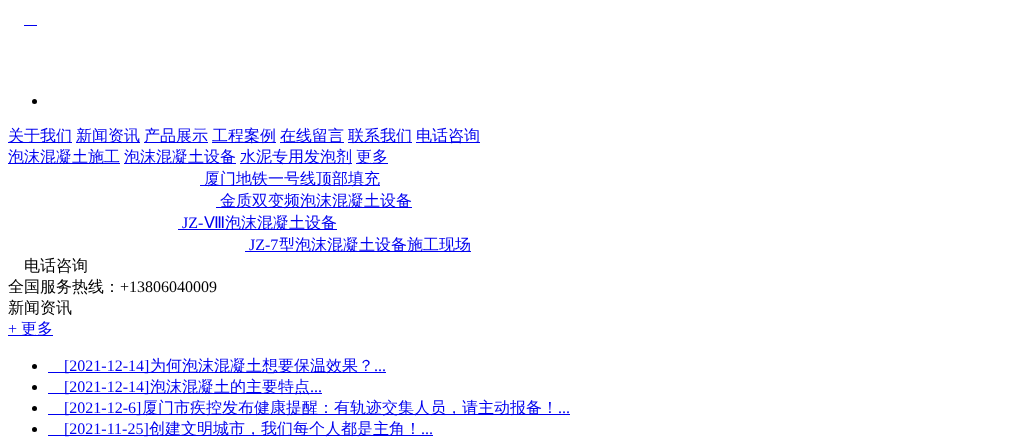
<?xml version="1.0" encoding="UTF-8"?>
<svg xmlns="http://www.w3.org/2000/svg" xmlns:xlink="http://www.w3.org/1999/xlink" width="1021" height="445">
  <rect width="100%" height="100%" fill="#ffffff" />
  <rect x="24" y="25" width="13" height="1" fill="#0000ee" />
  <circle cx="34.5" cy="101.5" r="2.5" fill="#000000" />
  <rect x="8" y="142" width="64" height="1" fill="#0000ee" />
  <rect x="76" y="142" width="64" height="1" fill="#0000ee" />
  <rect x="144" y="142" width="64" height="1" fill="#0000ee" />
  <rect x="212" y="142" width="64" height="1" fill="#0000ee" />
  <rect x="280" y="142" width="64" height="1" fill="#0000ee" />
  <rect x="348" y="142" width="64" height="1" fill="#0000ee" />
  <rect x="416" y="142" width="64" height="1" fill="#0000ee" />
  <rect x="8" y="163" width="112" height="1" fill="#0000ee" />
  <rect x="124" y="163" width="112" height="1" fill="#0000ee" />
  <rect x="240" y="163" width="112" height="1" fill="#0000ee" />
  <rect x="356" y="163" width="32" height="1" fill="#0000ee" />
  <rect x="200" y="185" width="180" height="1" fill="#0000ee" />
  <rect x="216" y="207" width="196" height="1" fill="#0000ee" />
  <rect x="178" y="229" width="159" height="1" fill="#0000ee" />
  <rect x="245" y="251" width="226" height="1" fill="#0000ee" />
  <rect x="8" y="335" width="45" height="1" fill="#0000ee" />
  <circle cx="34.5" cy="366.5" r="2.5" fill="#000000" />
  <rect x="48" y="372" width="338" height="1" fill="#0000ee" />
  <circle cx="34.5" cy="387.5" r="2.5" fill="#000000" />
  <rect x="48" y="393" width="274" height="1" fill="#0000ee" />
  <circle cx="34.5" cy="408.5" r="2.5" fill="#000000" />
  <rect x="48" y="414" width="522" height="1" fill="#0000ee" />
  <circle cx="34.5" cy="429.5" r="2.5" fill="#000000" />
  <rect x="48" y="435" width="385" height="1" fill="#0000ee" />
  <text x="8" y="141" style="font-family: WenQuanYi Zen Hei; font-size: 16px; font-weight: 500; fill: #0000ee">关于我们</text>
  <text x="76" y="141" style="font-family: WenQuanYi Zen Hei; font-size: 16px; font-weight: 500; fill: #0000ee">新闻资讯</text>
  <text x="144" y="141" style="font-family: WenQuanYi Zen Hei; font-size: 16px; font-weight: 500; fill: #0000ee">产品展示</text>
  <text x="212" y="141" style="font-family: WenQuanYi Zen Hei; font-size: 16px; font-weight: 500; fill: #0000ee">工程案例</text>
  <text x="280" y="141" style="font-family: WenQuanYi Zen Hei; font-size: 16px; font-weight: 500; fill: #0000ee">在线留言</text>
  <text x="348" y="141" style="font-family: WenQuanYi Zen Hei; font-size: 16px; font-weight: 500; fill: #0000ee">联系我们</text>
  <text x="416" y="141" style="font-family: WenQuanYi Zen Hei; font-size: 16px; font-weight: 500; fill: #0000ee">电话咨询</text>
  <text x="8" y="162" style="font-family: WenQuanYi Zen Hei; font-size: 16px; font-weight: 500; fill: #0000ee">泡沫混凝土施工</text>
  <text x="124" y="162" style="font-family: WenQuanYi Zen Hei; font-size: 16px; font-weight: 500; fill: #0000ee">泡沫混凝土设备</text>
  <text x="240" y="162" style="font-family: WenQuanYi Zen Hei; font-size: 16px; font-weight: 500; fill: #0000ee">水泥专用发泡剂</text>
  <text x="356" y="162" style="font-family: WenQuanYi Zen Hei; font-size: 16px; font-weight: 500; fill: #0000ee">更多</text>
  <text x="204" y="184" style="font-family: WenQuanYi Zen Hei; font-size: 16px; font-weight: 500; fill: #0000ee">厦门地铁一号线顶部填充</text>
  <text x="220" y="206" style="font-family: WenQuanYi Zen Hei; font-size: 16px; font-weight: 500; fill: #0000ee">金质双变频泡沫混凝土设备</text>
  <text x="182" y="228" style="font-family: Liberation Serif; font-size: 16px; fill: #0000ee">JZ-</text>
  <text x="204" y="228" style="font-family: DejaVu Sans; font-size: 16px; fill: #0000ee">Ⅷ</text>
  <text x="225" y="228" style="font-family: WenQuanYi Zen Hei; font-size: 16px; font-weight: 500; fill: #0000ee">泡沫混凝土设备</text>
  <text x="249" y="250" style="font-family: Liberation Serif; font-size: 16px; fill: #0000ee">JZ-7</text>
  <text x="279" y="250" style="font-family: WenQuanYi Zen Hei; font-size: 16px; font-weight: 500; fill: #0000ee">型泡沫混凝土设备施工现场</text>
  <text x="24" y="271" style="font-family: WenQuanYi Zen Hei; font-size: 16px; font-weight: 500; fill: #000000">电话咨询</text>
  <text x="8" y="292" style="font-family: WenQuanYi Zen Hei; font-size: 16px; font-weight: 500; fill: #000000">全国服务热线：</text>
  <text x="120" y="292" style="font-family: Liberation Serif; font-size: 16px; fill: #000000">+13806040009</text>
  <text x="8" y="313" style="font-family: WenQuanYi Zen Hei; font-size: 16px; font-weight: 500; fill: #000000">新闻资讯</text>
  <text x="8" y="334" style="font-family: Liberation Serif; font-size: 16px; fill: #0000ee">+</text>
  <text x="21" y="334" style="font-family: WenQuanYi Zen Hei; font-size: 16px; font-weight: 500; fill: #0000ee">更多</text>
  <text x="64" y="371" style="font-family: Liberation Serif; font-size: 16px; fill: #0000ee">[2021-12-14]</text>
  <text x="150" y="371" style="font-family: WenQuanYi Zen Hei; font-size: 16px; font-weight: 500; fill: #0000ee">为何泡沫混凝土想要保温效果？</text>
  <text x="374" y="371" style="font-family: Liberation Serif; font-size: 16px; fill: #0000ee">...</text>
  <text x="64" y="392" style="font-family: Liberation Serif; font-size: 16px; fill: #0000ee">[2021-12-14]</text>
  <text x="150" y="392" style="font-family: WenQuanYi Zen Hei; font-size: 16px; font-weight: 500; fill: #0000ee">泡沫混凝土的主要特点</text>
  <text x="310" y="392" style="font-family: Liberation Serif; font-size: 16px; fill: #0000ee">...</text>
  <text x="64" y="413" style="font-family: Liberation Serif; font-size: 16px; fill: #0000ee">[2021-12-6]</text>
  <text x="142" y="413" style="font-family: WenQuanYi Zen Hei; font-size: 16px; font-weight: 500; fill: #0000ee">厦门市疾控发布健康提醒：有轨迹交集人员，请主动报备！</text>
  <text x="558" y="413" style="font-family: Liberation Serif; font-size: 16px; fill: #0000ee">...</text>
  <text x="64" y="434" style="font-family: Liberation Serif; font-size: 16px; fill: #0000ee">[2021-11-25]</text>
  <text x="149" y="434" style="font-family: WenQuanYi Zen Hei; font-size: 16px; font-weight: 500; fill: #0000ee">创建文明城市，我们每个人都是主角！</text>
  <text x="421" y="434" style="font-family: Liberation Serif; font-size: 16px; fill: #0000ee">...</text>
</svg>
